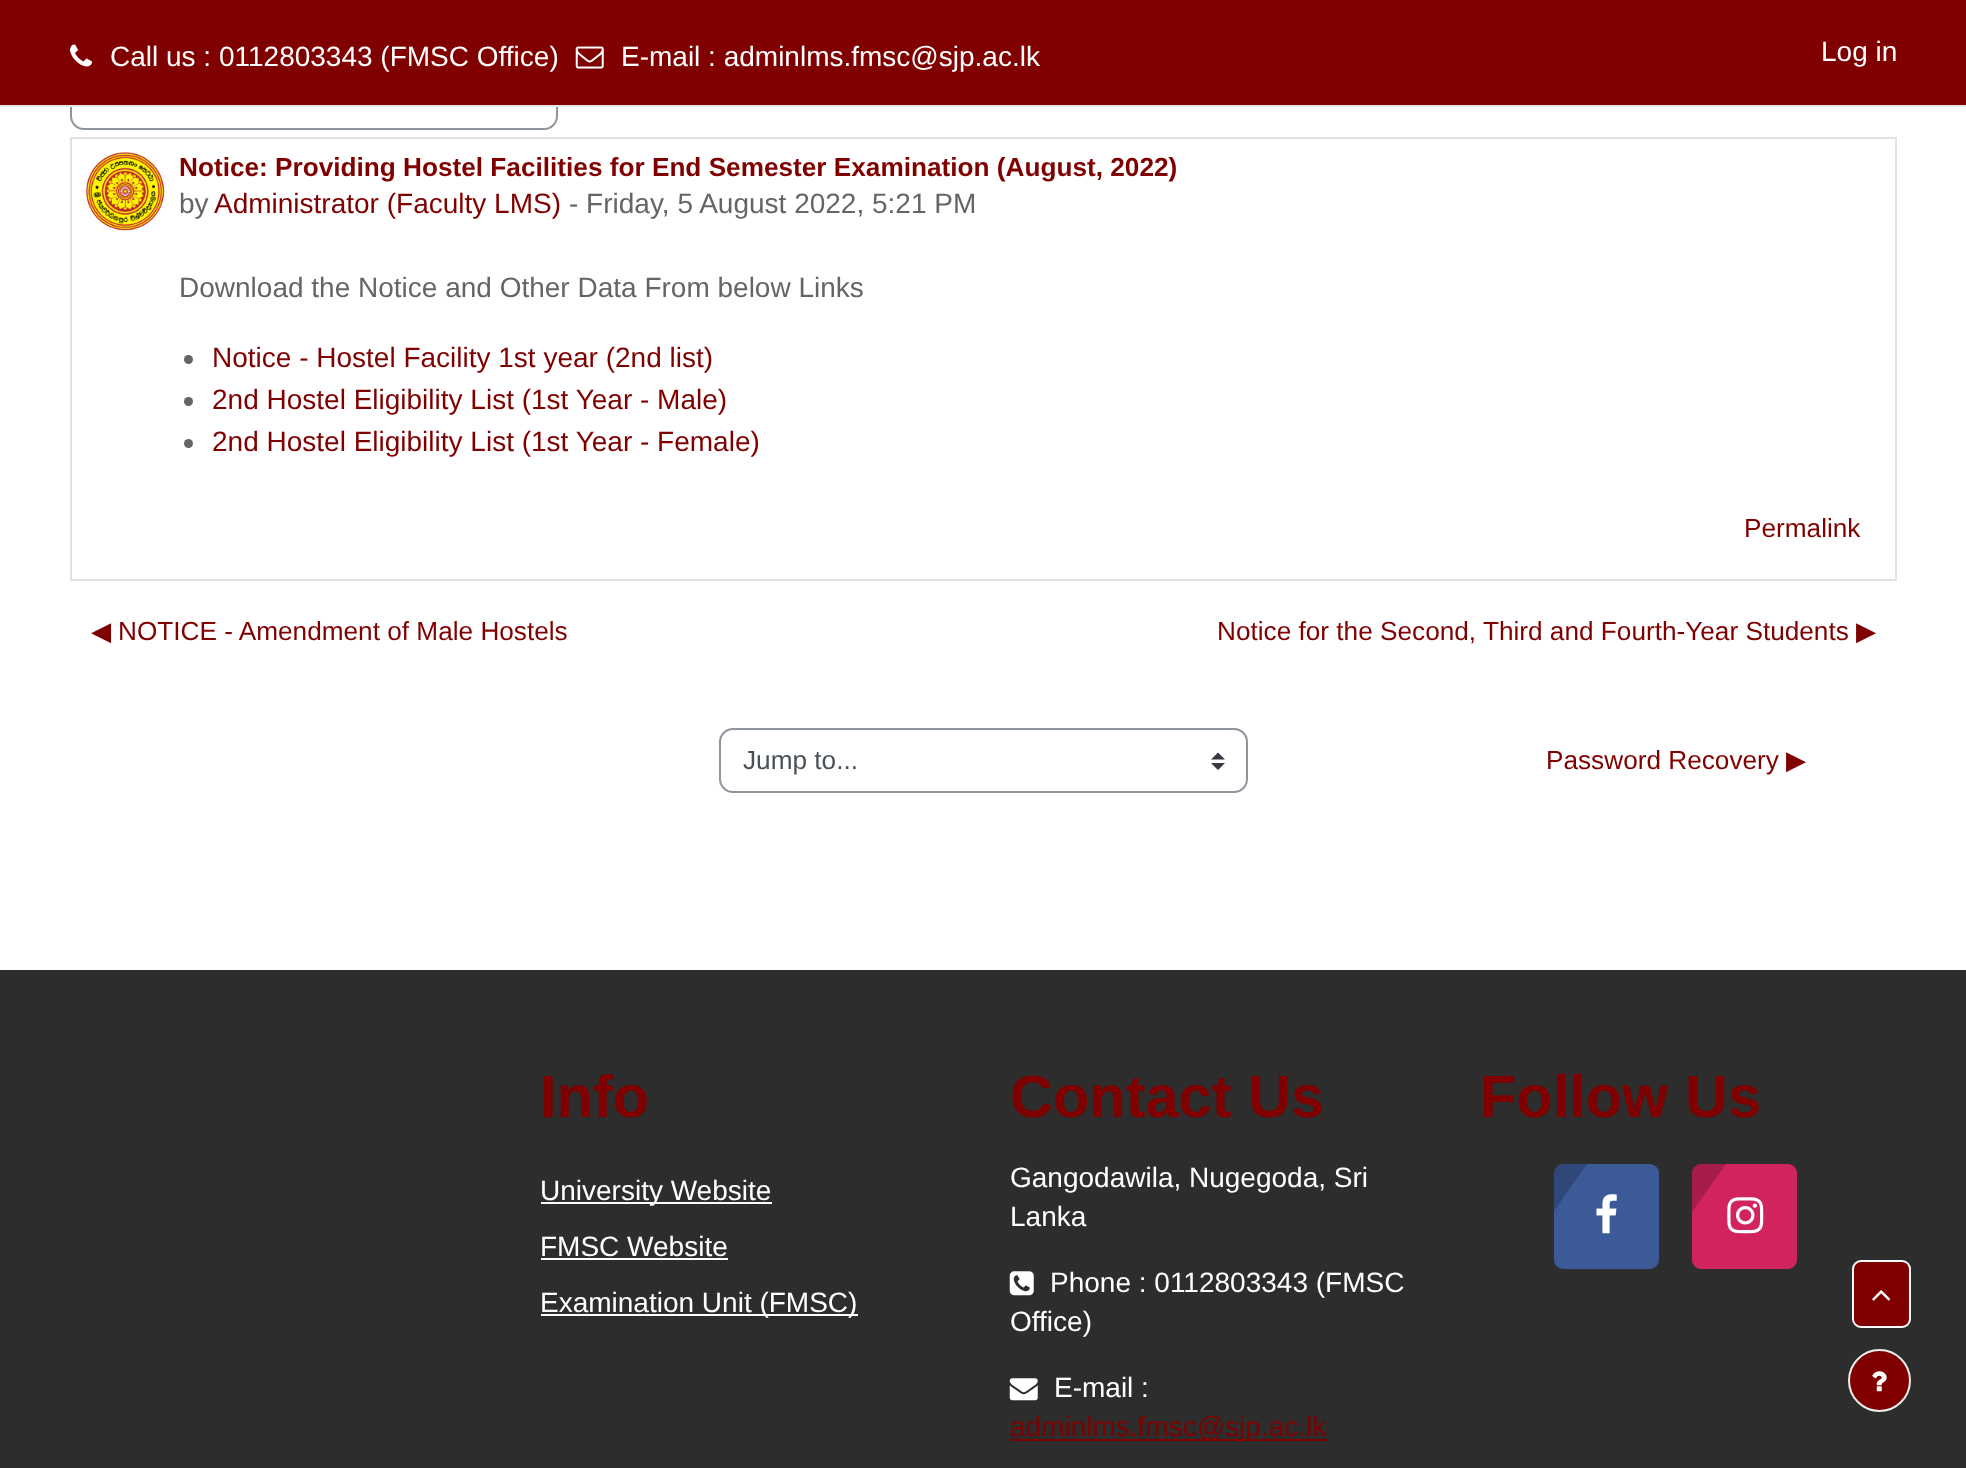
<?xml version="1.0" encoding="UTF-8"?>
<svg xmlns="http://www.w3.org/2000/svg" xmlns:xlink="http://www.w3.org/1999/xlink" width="1966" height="1468">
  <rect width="100%" height="100%" fill="#ffffff" />
  <rect x="71" y="66" width="486" height="63" rx="13" fill="none" stroke="#8f959e" stroke-width="2" />
  <rect width="1966" height="105" fill="#800000" />
  <rect y="105" width="1966" height="2" fill="#e8e3e3" />
  <image x="70" y="44" width="22" height="23" xlink:href="image1.png" />
  <image x="575" y="46" width="29" height="23" xlink:href="image2.png" />
  <rect x="71" y="138" width="1825" height="442" fill="none" stroke="#dee2e6" stroke-width="2" />
  <image x="85" y="152" width="80" height="79" xlink:href="image3.png" />
  <circle cx="188.5" cy="359.5" r="4.5" fill="#656565" />
  <circle cx="188.5" cy="401.5" r="4.5" fill="#656565" />
  <circle cx="188.5" cy="443.5" r="4.5" fill="#656565" />
  <path d="M 1218 752.5 l -7 7 h 14 z m 0 17.5 l -7 -7 h 14 z" fill="#343a40" />
  <rect x="720" y="729" width="527" height="63" rx="13" fill="none" stroke="#8f959e" stroke-width="2" />
  <rect y="970" width="1966" height="498" fill="#2d2d2d" />
  <rect x="541" y="1202" width="231" height="2" fill="#ffffff" />
  <rect x="541" y="1258" width="187" height="2" fill="#ffffff" />
  <rect x="541" y="1314" width="317" height="2" fill="#ffffff" />
  <image x="1009" y="1271" width="25" height="25" xlink:href="image4.png" />
  <image x="1009" y="1378" width="29" height="23" xlink:href="image5.png" />
  <rect x="1010" y="1439" width="317" height="2" fill="#800000" />
  <rect x="1554" y="1164" width="105" height="105" rx="9" fill="#3d5a98" />
  <image x="1596" y="1194" width="21" height="40" xlink:href="image6.png" />
  <path d="M 1563 1164 h 24 l -33 47 v -38 c 0 -5 4 -9 9 -9 z" fill="#000000" fill-opacity="0.2" />
  <rect x="1692" y="1164" width="105" height="105" rx="9" fill="#d1245d" />
  <image x="1727" y="1197" width="37" height="37" xlink:href="image7.png" />
  <path d="M 1701 1164 h 25 l -34 48 v -39 c 0 -5 4 -9 9 -9 z" fill="#000000" fill-opacity="0.2" />
  <circle cx="1879.5" cy="1380.5" r="30.5" fill="#800000" stroke="#eeeeee" stroke-width="2" />
  <image x="1872" y="1371" width="15" height="21" xlink:href="image8.png" />
  <rect x="1853" y="1261" width="57" height="66" rx="8" fill="#800000" stroke="#ffffff" stroke-width="2" />
  <image x="1872" y="1290" width="19" height="11" xlink:href="image9.png" />
  <text x="110" y="66" style="font-family: Liberation Sans; font-size: 28px; fill: #ffffff">Call us : 0112803343 (FMSC Office)</text>
  <text x="621" y="66" style="font-family: Liberation Sans; font-size: 28px; fill: #ffffff">E-mail : adminlms.fmsc@sjp.ac.lk</text>
  <text x="1821" y="61" style="font-family: Liberation Sans; font-size: 28px; fill: #ffffff">Log in</text>
  <text x="179" y="176" style="font-family: Liberation Sans; font-size: 26.2px; font-weight: bold; fill: #800000">Notice: Providing Hostel Facilities for End Semester Examination (August, 2022)</text>
  <text x="179" y="213" style="font-family: Liberation Sans; font-size: 28px; fill: #656565">by</text>
  <text x="214" y="213" style="font-family: Liberation Sans; font-size: 28px; fill: #800000">Administrator (Faculty LMS)</text>
  <text x="569" y="213" style="font-family: Liberation Sans; font-size: 28px; fill: #656565">- Friday, 5 August 2022, 5:21 PM</text>
  <text x="179" y="297" style="font-family: Liberation Sans; font-size: 28px; fill: #656565">Download the Notice and Other Data From below Links</text>
  <text x="212" y="367" style="font-family: Liberation Sans; font-size: 28px; fill: #800000">Notice - Hostel Facility 1st year (2nd list)</text>
  <text x="212" y="409" style="font-family: Liberation Sans; font-size: 28px; fill: #800000">2nd Hostel Eligibility List (1st Year - Male)</text>
  <text x="212" y="451" style="font-family: Liberation Sans; font-size: 28px; fill: #800000">2nd Hostel Eligibility List (1st Year - Female)</text>
  <text x="1744" y="537" style="font-family: Liberation Sans; font-size: 26.2px; fill: #800000">Permalink</text>
  <text x="91" y="640" style="font-family: DejaVu Sans; font-size: 26.2px; fill: #800000">◀︎</text>
  <text x="118" y="640" style="font-family: Liberation Sans; font-size: 26.2px; fill: #800000">NOTICE - Amendment of Male Hostels</text>
  <text x="1217" y="640" style="font-family: Liberation Sans; font-size: 26.2px; fill: #800000">Notice for the Second, Third and Fourth-Year Students</text>
  <text x="1856" y="640" style="font-family: DejaVu Sans; font-size: 26.2px; fill: #800000">▶︎</text>
  <text x="743" y="769" style="font-family: Liberation Sans; font-size: 26.2px; fill: #495057">Jump to...</text>
  <text x="1546" y="769" style="font-family: Liberation Sans; font-size: 26.2px; fill: #800000">Password Recovery</text>
  <text x="1786" y="769" style="font-family: DejaVu Sans; font-size: 26.2px; fill: #800000">▶︎</text>
  <text x="540" y="1117" style="font-family: Liberation Sans; font-size: 59.5px; font-weight: bold; fill: #800000">Info</text>
  <text x="540" y="1200" style="font-family: Liberation Sans; font-size: 28px; fill: #ffffff">University Website</text>
  <text x="540" y="1256" style="font-family: Liberation Sans; font-size: 28px; fill: #ffffff">FMSC Website</text>
  <text x="540" y="1312" style="font-family: Liberation Sans; font-size: 28px; fill: #ffffff">Examination Unit (FMSC)</text>
  <text x="1010" y="1117" style="font-family: Liberation Sans; font-size: 59.5px; font-weight: bold; fill: #800000">Contact Us</text>
  <text x="1010" y="1187" style="font-family: Liberation Sans; font-size: 28px; fill: #ffffff">Gangodawila, Nugegoda, Sri</text>
  <text x="1010" y="1226" style="font-family: Liberation Sans; font-size: 28px; fill: #ffffff">Lanka</text>
  <text x="1050" y="1292" style="font-family: Liberation Sans; font-size: 28px; fill: #ffffff">Phone : 0112803343 (FMSC</text>
  <text x="1010" y="1331" style="font-family: Liberation Sans; font-size: 28px; fill: #ffffff">Office)</text>
  <text x="1054" y="1397" style="font-family: Liberation Sans; font-size: 28px; fill: #ffffff">E-mail :</text>
  <text x="1010" y="1436" style="font-family: Liberation Sans; font-size: 28px; fill: #800000">adminlms.fmsc@sjp.ac.lk</text>
  <text x="1480" y="1117" style="font-family: Liberation Sans; font-size: 59.5px; font-weight: bold; fill: #800000">Follow Us</text>
</svg>
